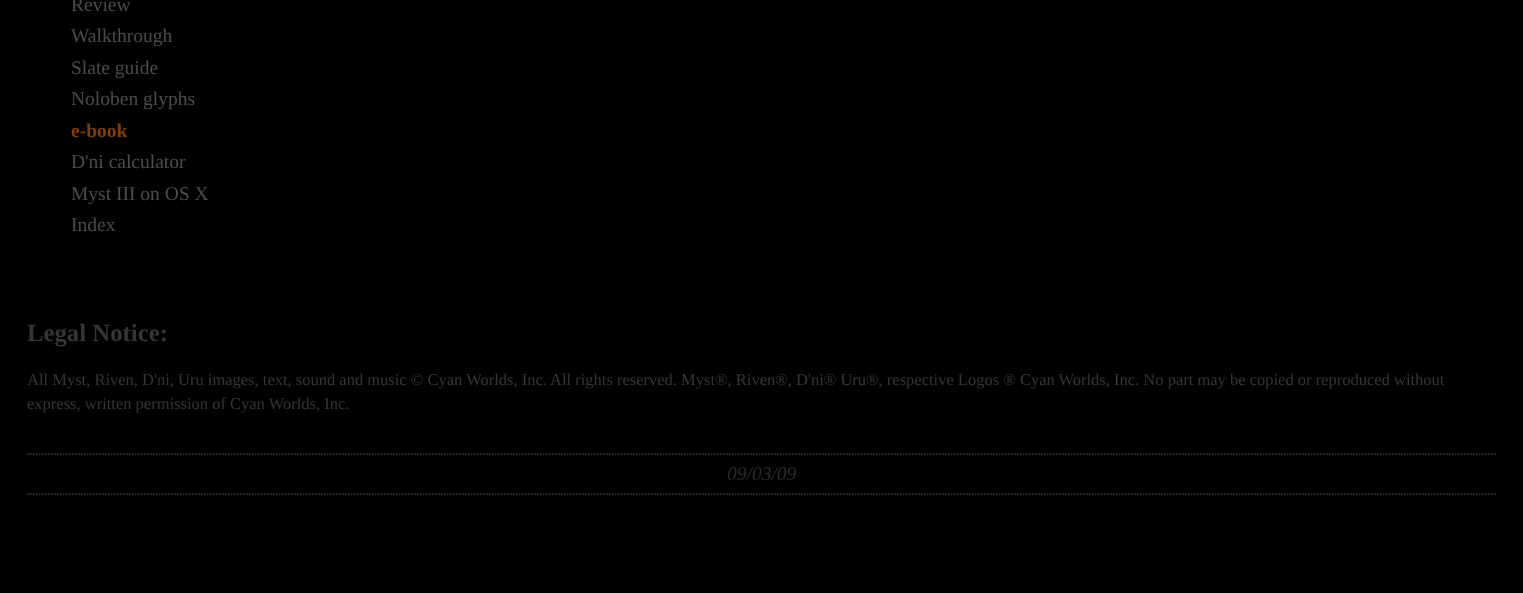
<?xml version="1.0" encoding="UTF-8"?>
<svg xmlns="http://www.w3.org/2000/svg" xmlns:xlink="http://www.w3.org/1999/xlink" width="1523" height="593">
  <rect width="100%" height="100%" fill="#000000" />
  <path d="M 27 454 h 1470" fill="none" stroke="#404040" stroke-width="1.5" stroke-dasharray="1.5 1.5" />
  <path d="M 27 494 h 1470" fill="none" stroke="#404040" stroke-width="1.5" stroke-dasharray="1.5 1.5" />
  <text x="71" y="11" style="font-family: Liberation Serif; font-size: 19.5px; fill: #4c4c4c">Review</text>
  <text x="71" y="42" style="font-family: Liberation Serif; font-size: 19.5px; fill: #4c4c4c">Walkthrough</text>
  <text x="71" y="74" style="font-family: Liberation Serif; font-size: 19.5px; fill: #4c4c4c">Slate guide</text>
  <text x="71" y="105" style="font-family: Liberation Serif; font-size: 19.5px; fill: #4c4c4c">Noloben glyphs</text>
  <text x="71" y="137" style="font-family: Liberation Serif; font-size: 19.5px; font-weight: bold; fill: #804000">e-book</text>
  <text x="71" y="168" style="font-family: Liberation Serif; font-size: 19.5px; fill: #4c4c4c">D'ni calculator</text>
  <text x="71" y="200" style="font-family: Liberation Serif; font-size: 19.5px; fill: #4c4c4c">Myst III on OS X</text>
  <text x="71" y="231" style="font-family: Liberation Serif; font-size: 19.5px; fill: #4c4c4c">Index</text>
  <text x="27" y="341" style="font-family: Liberation Serif; font-size: 24.75px; font-weight: bold; fill: #363636">Legal Notice:</text>
  <text x="27" y="385" style="font-family: Liberation Serif; font-size: 16.5px; fill: #363636">All Myst, Riven, D'ni, Uru images, text, sound and music © Cyan Worlds, Inc. All rights reserved. Myst®, Riven®, D'ni® Uru®, respective Logos ® Cyan Worlds, Inc. No part may be copied or reproduced without</text>
  <text x="27" y="409" style="font-family: Liberation Serif; font-size: 16.5px; fill: #363636">express, written permission of Cyan Worlds, Inc.</text>
  <text x="727" y="480" style="font-family: Liberation Serif; font-size: 19.5px; font-style: italic; fill: #2b2b2b">09/03/09</text>
</svg>
